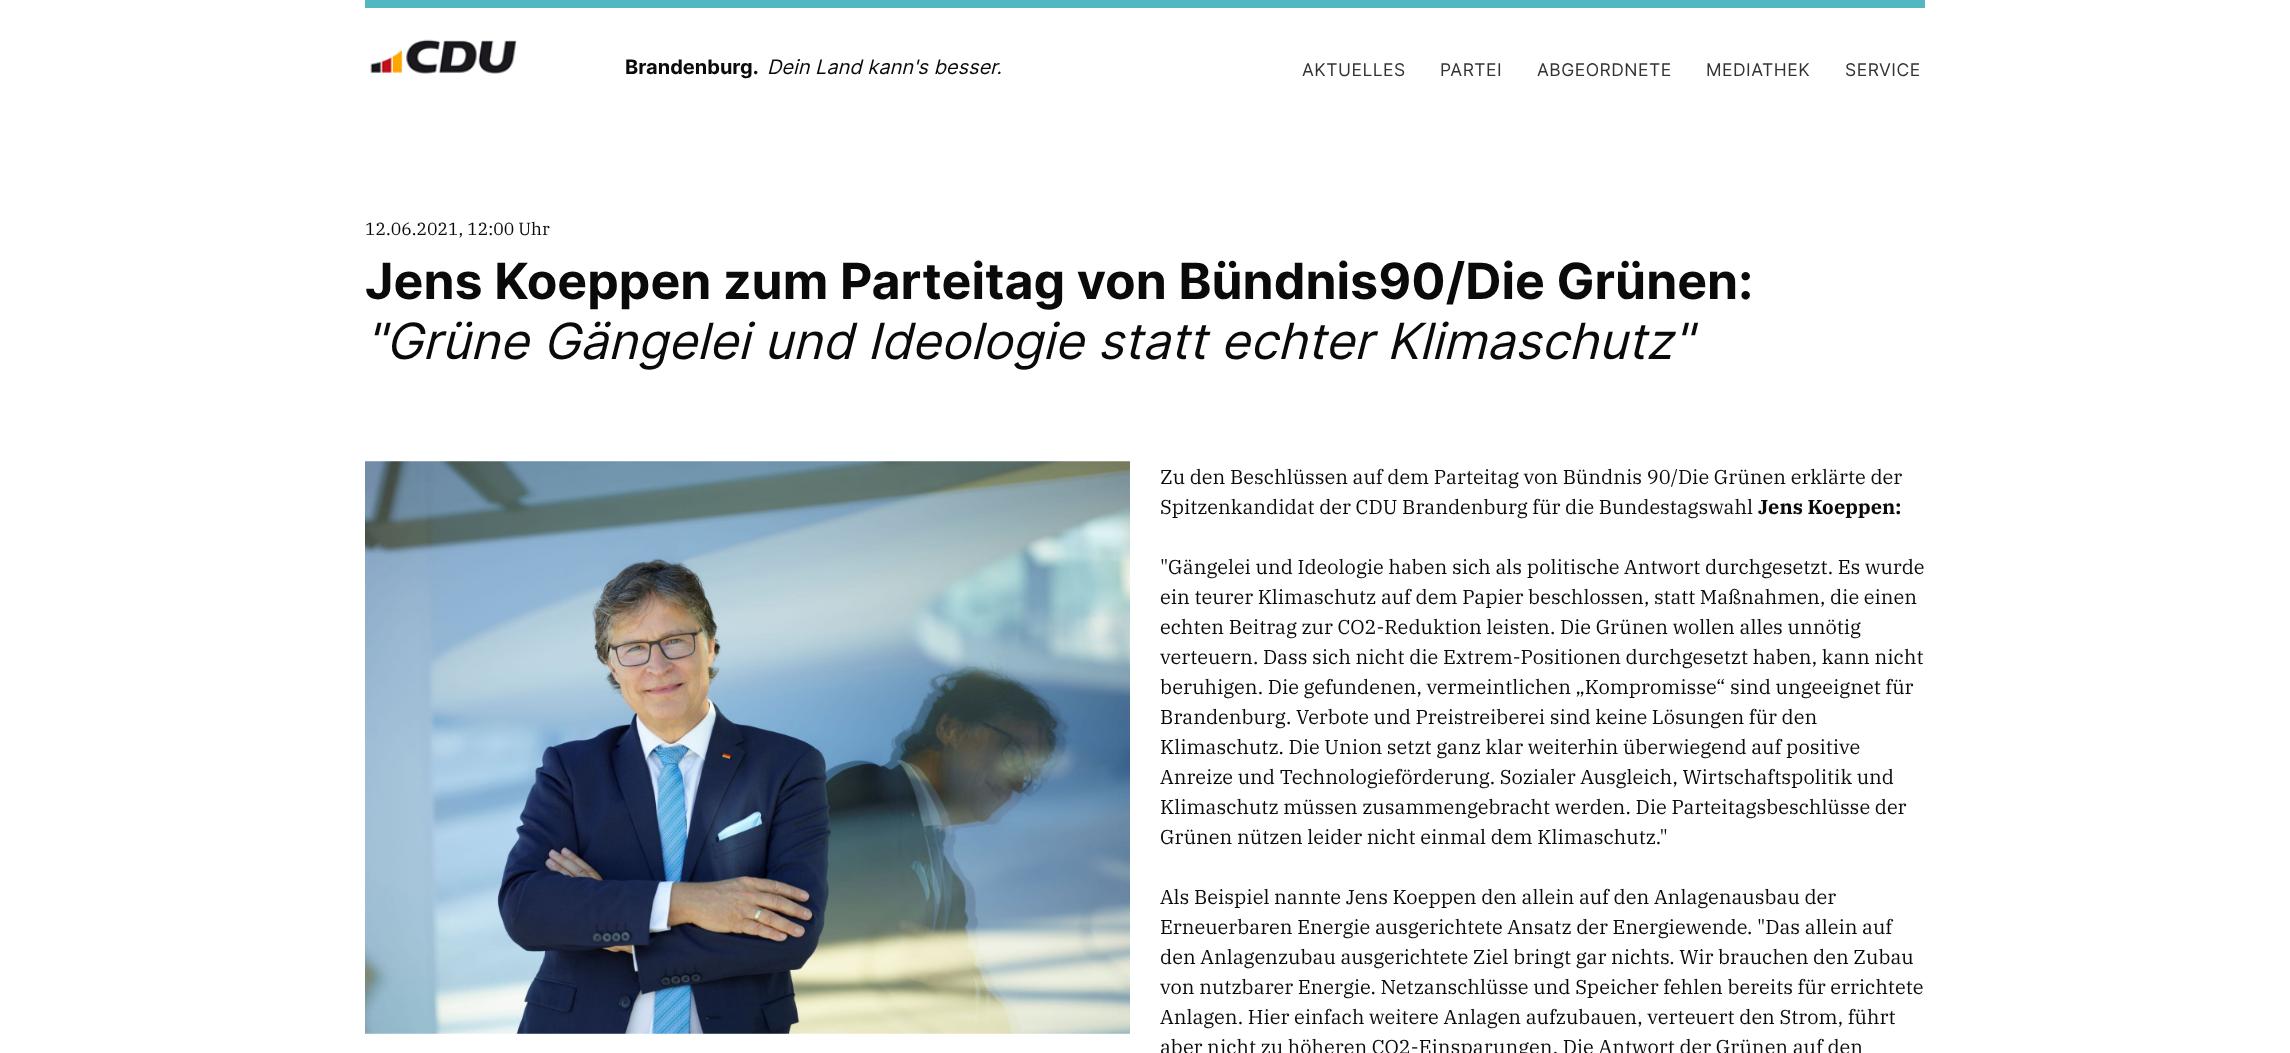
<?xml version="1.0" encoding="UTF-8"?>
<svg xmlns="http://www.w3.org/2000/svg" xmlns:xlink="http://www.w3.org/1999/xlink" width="2290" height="1053">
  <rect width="100%" height="100%" fill="#ffffff" />
  <rect x="365" width="1560" height="8" fill="#52b7c1" />
  <image x="370" y="39" width="147" height="35" xlink:href="image1.png" />
  <image x="365" y="461" width="765" height="573" xlink:href="image2.png" />
  <text x="625" y="74" style="font-family: Inter; font-size: 20px; font-weight: bold; fill: #0b0a0a">Brandenburg.</text>
  <text x="767" y="74" style="font-family: Inter; font-size: 20px; font-style: italic; fill: #0b0a0a">Dein Land kann's besser.</text>
  <text x="1302" y="76" style="font-family: Inter; font-size: 17.5px; letter-spacing: 0.5px; fill: #333333">AKTUELLES</text>
  <text x="1440" y="76" style="font-family: Inter; font-size: 17.5px; letter-spacing: 0.5px; fill: #333333">PARTEI</text>
  <text x="1537" y="76" style="font-family: Inter; font-size: 17.5px; letter-spacing: 0.5px; fill: #333333">ABGEORDNETE</text>
  <text x="1706" y="76" style="font-family: Inter; font-size: 17.5px; letter-spacing: 0.5px; fill: #333333">MEDIATHEK</text>
  <text x="1845" y="76" style="font-family: Inter; font-size: 17.5px; letter-spacing: 0.5px; fill: #333333">SERVICE</text>
  <text x="365" y="235" style="font-family: IBM Plex Serif; font-size: 17.5px; fill: #0b0a0a">12.06.2021, 12:00 Uhr</text>
  <text x="365" y="299" style="font-family: Inter; font-size: 50px; font-weight: bold; fill: #0b0a0a">Jens Koeppen zum Parteitag von Bündnis90/Die Grünen:</text>
  <text x="365" y="359" style="font-family: Inter; font-size: 50px; font-style: italic; fill: #0b0a0a">"Grüne Gängelei und Ideologie statt echter Klimaschutz"</text>
  <text x="1160" y="484" style="font-family: IBM Plex Serif; font-size: 20px; fill: #0b0a0a">Zu den Beschlüssen auf dem Parteitag von Bündnis 90/Die Grünen erklärte der</text>
  <text x="1160" y="514" style="font-family: IBM Plex Serif; font-size: 20px; fill: #0b0a0a">Spitzenkandidat der CDU Brandenburg für die Bundestagswahl</text>
  <text x="1758" y="514" style="font-family: IBM Plex Serif; font-size: 20px; font-weight: bold; fill: #0b0a0a">Jens Koeppen:</text>
  <text x="1160" y="574" style="font-family: IBM Plex Serif; font-size: 20px; fill: #0b0a0a">"Gängelei und Ideologie haben sich als politische Antwort durchgesetzt. Es wurde</text>
  <text x="1160" y="604" style="font-family: IBM Plex Serif; font-size: 20px; fill: #0b0a0a">ein teurer Klimaschutz auf dem Papier beschlossen, statt Maßnahmen, die einen</text>
  <text x="1160" y="634" style="font-family: IBM Plex Serif; font-size: 20px; fill: #0b0a0a">echten Beitrag zur CO2-Reduktion leisten. Die Grünen wollen alles unnötig</text>
  <text x="1160" y="664" style="font-family: IBM Plex Serif; font-size: 20px; fill: #0b0a0a">verteuern. Dass sich nicht die Extrem-Positionen durchgesetzt haben, kann nicht</text>
  <text x="1160" y="694" style="font-family: IBM Plex Serif; font-size: 20px; fill: #0b0a0a">beruhigen. Die gefundenen, vermeintlichen „Kompromisse“ sind ungeeignet für</text>
  <text x="1160" y="724" style="font-family: IBM Plex Serif; font-size: 20px; fill: #0b0a0a">Brandenburg. Verbote und Preistreiberei sind keine Lösungen für den</text>
  <text x="1160" y="754" style="font-family: IBM Plex Serif; font-size: 20px; fill: #0b0a0a">Klimaschutz. Die Union setzt ganz klar weiterhin überwiegend auf positive</text>
  <text x="1160" y="784" style="font-family: IBM Plex Serif; font-size: 20px; fill: #0b0a0a">Anreize und Technologieförderung. Sozialer Ausgleich, Wirtschaftspolitik und</text>
  <text x="1160" y="814" style="font-family: IBM Plex Serif; font-size: 20px; fill: #0b0a0a">Klimaschutz müssen zusammengebracht werden. Die Parteitagsbeschlüsse der</text>
  <text x="1160" y="844" style="font-family: IBM Plex Serif; font-size: 20px; fill: #0b0a0a">Grünen nützen leider nicht einmal dem Klimaschutz."</text>
  <text x="1160" y="904" style="font-family: IBM Plex Serif; font-size: 20px; fill: #0b0a0a">Als Beispiel nannte Jens Koeppen den allein auf den Anlagenausbau der</text>
  <text x="1160" y="934" style="font-family: IBM Plex Serif; font-size: 20px; fill: #0b0a0a">Erneuerbaren Energie ausgerichtete Ansatz der Energiewende. "Das allein auf</text>
  <text x="1160" y="964" style="font-family: IBM Plex Serif; font-size: 20px; fill: #0b0a0a">den Anlagenzubau ausgerichtete Ziel bringt gar nichts. Wir brauchen den Zubau</text>
  <text x="1160" y="994" style="font-family: IBM Plex Serif; font-size: 20px; fill: #0b0a0a">von nutzbarer Energie. Netzanschlüsse und Speicher fehlen bereits für errichtete</text>
  <text x="1160" y="1024" style="font-family: IBM Plex Serif; font-size: 20px; fill: #0b0a0a">Anlagen. Hier einfach weitere Anlagen aufzubauen, verteuert den Strom, führt</text>
  <text x="1160" y="1054" style="font-family: IBM Plex Serif; font-size: 20px; fill: #0b0a0a">aber nicht zu höheren CO2-Einsparungen. Die Antwort der Grünen auf den</text>
</svg>
